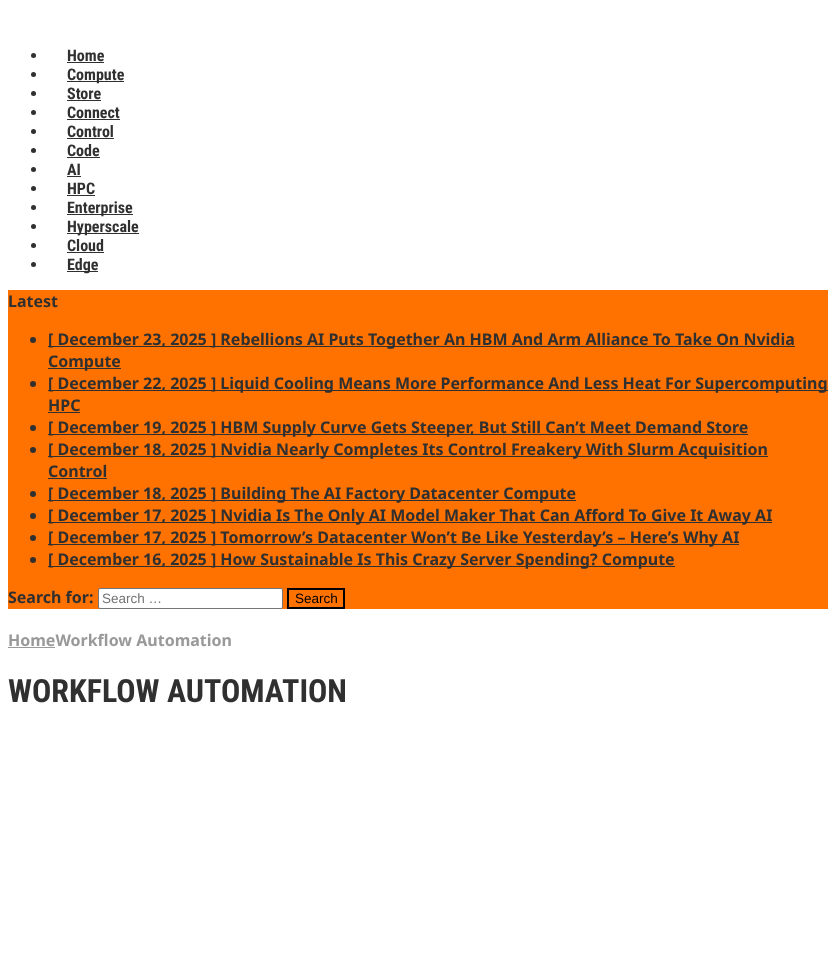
<?xml version="1.0" encoding="UTF-8"?>
<svg xmlns="http://www.w3.org/2000/svg" xmlns:xlink="http://www.w3.org/1999/xlink" width="836" height="957">
  <rect width="100%" height="100%" fill="#ffffff" />
  <circle cx="33.5" cy="55.5" r="2.5" fill="#303030" />
  <rect x="67" y="62" width="37" height="1" fill="#303030" />
  <circle cx="33.5" cy="74.5" r="2.5" fill="#303030" />
  <rect x="67" y="81" width="57" height="1" fill="#303030" />
  <circle cx="33.5" cy="93.5" r="2.5" fill="#303030" />
  <rect x="67" y="100" width="34" height="1" fill="#303030" />
  <circle cx="33.5" cy="112.5" r="2.5" fill="#303030" />
  <rect x="67" y="119" width="53" height="1" fill="#303030" />
  <circle cx="33.5" cy="131.5" r="2.5" fill="#303030" />
  <rect x="67" y="138" width="47" height="1" fill="#303030" />
  <circle cx="33.5" cy="150.5" r="2.5" fill="#303030" />
  <rect x="67" y="157" width="33" height="1" fill="#303030" />
  <circle cx="33.5" cy="169.5" r="2.5" fill="#303030" />
  <rect x="67" y="176" width="14" height="1" fill="#303030" />
  <circle cx="33.5" cy="188.5" r="2.5" fill="#303030" />
  <rect x="67" y="195" width="28" height="1" fill="#303030" />
  <circle cx="33.5" cy="207.5" r="2.5" fill="#303030" />
  <rect x="67" y="214" width="66" height="1" fill="#303030" />
  <circle cx="33.5" cy="226.5" r="2.5" fill="#303030" />
  <rect x="67" y="233" width="72" height="1" fill="#303030" />
  <circle cx="33.5" cy="245.5" r="2.5" fill="#303030" />
  <rect x="67" y="252" width="37" height="1" fill="#303030" />
  <circle cx="33.5" cy="264.5" r="2.5" fill="#303030" />
  <rect x="67" y="271" width="31" height="1" fill="#303030" />
  <rect x="8" y="290" width="820" height="319" fill="#ff7200" />
  <circle cx="33" cy="340" r="3" fill="#303030" />
  <rect x="48" y="346" width="747" height="1" fill="#303030" />
  <rect x="48" y="368" width="73" height="1" fill="#303030" />
  <circle cx="33" cy="384" r="3" fill="#303030" />
  <rect x="48" y="390" width="780" height="1" fill="#303030" />
  <rect x="48" y="412" width="32" height="1" fill="#303030" />
  <circle cx="33" cy="428" r="3" fill="#303030" />
  <rect x="48" y="434" width="700" height="1" fill="#303030" />
  <circle cx="33" cy="450" r="3" fill="#303030" />
  <rect x="48" y="456" width="720" height="1" fill="#303030" />
  <rect x="48" y="478" width="59" height="1" fill="#303030" />
  <circle cx="33" cy="494" r="3" fill="#303030" />
  <rect x="48" y="500" width="528" height="1" fill="#303030" />
  <circle cx="33" cy="516" r="3" fill="#303030" />
  <rect x="48" y="522" width="724" height="1" fill="#303030" />
  <circle cx="33" cy="538" r="3" fill="#303030" />
  <rect x="48" y="544" width="691" height="1" fill="#303030" />
  <circle cx="33" cy="560" r="3" fill="#303030" />
  <rect x="48" y="566" width="627" height="1" fill="#303030" />
  <rect x="98.5" y="588.5" width="184" height="20" rx="1.5" fill="#ffffff" stroke="#767676" />
  <rect x="288" y="589" width="56" height="19" fill="none" stroke="#000000" stroke-width="2" />
  <rect x="8" y="647" width="47" height="1" fill="#999999" />
  <text x="67" y="61" style="font-family: Roboto Condensed; font-size: 16px; font-weight: bold; fill: #303030">Home</text>
  <text x="67" y="80" style="font-family: Roboto Condensed; font-size: 16px; font-weight: bold; fill: #303030">Compute</text>
  <text x="67" y="99" style="font-family: Roboto Condensed; font-size: 16px; font-weight: bold; fill: #303030">Store</text>
  <text x="67" y="118" style="font-family: Roboto Condensed; font-size: 16px; font-weight: bold; fill: #303030">Connect</text>
  <text x="67" y="137" style="font-family: Roboto Condensed; font-size: 16px; font-weight: bold; fill: #303030">Control</text>
  <text x="67" y="156" style="font-family: Roboto Condensed; font-size: 16px; font-weight: bold; fill: #303030">Code</text>
  <text x="67" y="175" style="font-family: Roboto Condensed; font-size: 16px; font-weight: bold; fill: #303030">AI</text>
  <text x="67" y="194" style="font-family: Roboto Condensed; font-size: 16px; font-weight: bold; fill: #303030">HPC</text>
  <text x="67" y="213" style="font-family: Roboto Condensed; font-size: 16px; font-weight: bold; fill: #303030">Enterprise</text>
  <text x="67" y="232" style="font-family: Roboto Condensed; font-size: 16px; font-weight: bold; fill: #303030">Hyperscale</text>
  <text x="67" y="251" style="font-family: Roboto Condensed; font-size: 16px; font-weight: bold; fill: #303030">Cloud</text>
  <text x="67" y="270" style="font-family: Roboto Condensed; font-size: 16px; font-weight: bold; fill: #303030">Edge</text>
  <text x="8" y="307" style="font-family: Noto Sans; font-size: 16px; font-weight: bold; fill: #303030">Latest</text>
  <text x="48" y="345" style="font-family: Noto Sans; font-size: 16px; font-weight: bold; fill: #303030">[ December 23, 2025 ] Rebellions AI Puts Together An HBM And Arm Alliance To Take On Nvidia</text>
  <text x="48" y="367" style="font-family: Noto Sans; font-size: 16px; font-weight: bold; fill: #303030">Compute</text>
  <text x="48" y="389" style="font-family: Noto Sans; font-size: 16px; font-weight: bold; fill: #303030">[ December 22, 2025 ] Liquid Cooling Means More Performance And Less Heat For Supercomputing</text>
  <text x="48" y="411" style="font-family: Noto Sans; font-size: 16px; font-weight: bold; fill: #303030">HPC</text>
  <text x="48" y="433" style="font-family: Noto Sans; font-size: 16px; font-weight: bold; fill: #303030">[ December 19, 2025 ] HBM Supply Curve Gets Steeper, But Still Can’t Meet Demand Store</text>
  <text x="48" y="455" style="font-family: Noto Sans; font-size: 16px; font-weight: bold; fill: #303030">[ December 18, 2025 ] Nvidia Nearly Completes Its Control Freakery With Slurm Acquisition</text>
  <text x="48" y="477" style="font-family: Noto Sans; font-size: 16px; font-weight: bold; fill: #303030">Control</text>
  <text x="48" y="499" style="font-family: Noto Sans; font-size: 16px; font-weight: bold; fill: #303030">[ December 18, 2025 ] Building The AI Factory Datacenter Compute</text>
  <text x="48" y="521" style="font-family: Noto Sans; font-size: 16px; font-weight: bold; fill: #303030">[ December 17, 2025 ] Nvidia Is The Only AI Model Maker That Can Afford To Give It Away AI</text>
  <text x="48" y="543" style="font-family: Noto Sans; font-size: 16px; font-weight: bold; fill: #303030">[ December 17, 2025 ] Tomorrow’s Datacenter Won’t Be Like Yesterday’s – Here’s Why AI</text>
  <text x="48" y="565" style="font-family: Noto Sans; font-size: 16px; font-weight: bold; fill: #303030">[ December 16, 2025 ] How Sustainable Is This Crazy Server Spending? Compute</text>
  <text x="8" y="603" style="font-family: Noto Sans; font-size: 16px; font-weight: bold; fill: #303030">Search for:</text>
  <text x="102" y="603" style="font-family: Liberation Sans; font-size: 13.5px; fill: #757575">Search …</text>
  <text x="295" y="603" style="font-family: Liberation Sans; font-size: 13.5px; fill: #000000">Search</text>
  <text x="8" y="646" style="font-family: Noto Sans; font-size: 16px; font-weight: bold; fill: #999999">HomeWorkflow Automation</text>
  <text x="8" y="702" style="font-family: Roboto Condensed; font-size: 32px; font-weight: bold; fill: #303030">WORKFLOW AUTOMATION</text>
</svg>
